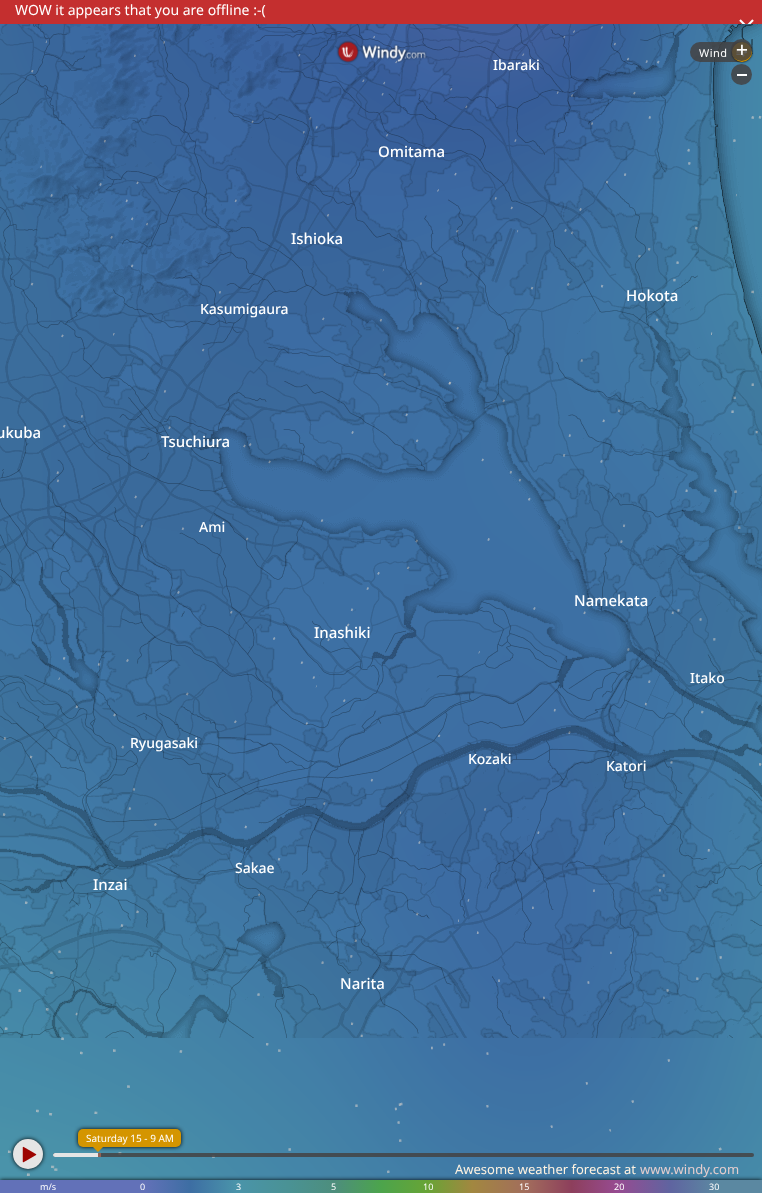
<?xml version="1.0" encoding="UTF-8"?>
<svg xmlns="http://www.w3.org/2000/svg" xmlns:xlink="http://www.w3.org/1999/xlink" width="762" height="1193">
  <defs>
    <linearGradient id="g1" gradientUnits="userSpaceOnUse" x1="0" y1="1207" x2="762" y2="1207"><stop offset="0" stop-color="#6271b8" /><stop offset="0.19" stop-color="#6271b8" /><stop offset="0.25" stop-color="#3d6ea3" /><stop offset="0.31" stop-color="#4a94aa" /><stop offset="0.38" stop-color="#4a9294" /><stop offset="0.44" stop-color="#4d8e7c" /><stop offset="0.5" stop-color="#4ca44c" /><stop offset="0.56" stop-color="#67a436" /><stop offset="0.62" stop-color="#a28740" /><stop offset="0.69" stop-color="#a26d5c" /><stop offset="0.75" stop-color="#8d3f5c" /><stop offset="0.81" stop-color="#974b91" /><stop offset="0.88" stop-color="#5f64a0" /><stop offset="0.94" stop-color="#5b88a1" /><stop offset="1" stop-color="#5b88a1" /></linearGradient>
  </defs>
  <rect width="100%" height="100%" fill="#ffffff" />
  <rect width="762" height="24" fill="#c42f2f" />
  <image x="739" y="19" width="15" height="5" xlink:href="image1.png" />
  <image x="298" y="24" width="256" height="246" xlink:href="image8.png" />
  <image x="0" y="24" width="42" height="246" xlink:href="image6.png" />
  <image x="42" y="24" width="256" height="246" xlink:href="image7.png" />
  <image x="554" y="24" width="208" height="246" xlink:href="image9.png" />
  <rect y="270" width="42" height="256" fill="#3e72a4" />
  <image x="42" y="270" width="256" height="256" xlink:href="image10.png" />
  <image x="298" y="270" width="256" height="256" xlink:href="image11.png" />
  <image x="554" y="270" width="208" height="256" xlink:href="image12.png" />
  <image x="0" y="526" width="42" height="256" xlink:href="image13.png" />
  <image x="42" y="526" width="256" height="256" xlink:href="image14.png" />
  <image x="298" y="526" width="256" height="256" xlink:href="image15.png" />
  <image x="554" y="526" width="208" height="256" xlink:href="image16.png" />
  <image x="0" y="782" width="42" height="256" xlink:href="image17.png" />
  <image x="42" y="782" width="256" height="256" xlink:href="image18.png" />
  <image x="298" y="782" width="256" height="256" xlink:href="image19.png" />
  <image x="554" y="782" width="208" height="256" xlink:href="image20.png" />
  <image x="0" y="1038" width="42" height="142" xlink:href="image21.png" />
  <image x="42" y="1038" width="256" height="142" xlink:href="image22.png" />
  <image x="298" y="1038" width="256" height="142" xlink:href="image23.png" />
  <image x="554" y="1038" width="208" height="142" xlink:href="image24.png" />
  <image x="2" y="26" width="760" height="1150" xlink:href="image41.png" />
  <image x="298" y="24" width="256" height="246" xlink:href="image27.png" />
  <image x="336" y="40" width="24" height="24" xlink:href="image2.png" />
  <image x="361" y="44" width="66" height="19" xlink:href="image3.png" />
  <image x="554" y="24" width="208" height="246" xlink:href="image28.png" />
  <rect x="690" y="42" width="62" height="20" rx="10" fill="#444141" fill-opacity="0.84" />
  <rect x="732" y="42" width="20" height="20" rx="10" fill="#000000" filter="blur(1px)" />
  <circle cx="742" cy="52" r="10" fill="#d49500" />
  <image x="736" y="50" width="11" height="7" xlink:href="image4.png" />
  <rect x="731" y="39" width="21" height="22" rx="10.5" fill="#444141" fill-opacity="0.84" />
  <image x="736" y="44" width="12" height="11" xlink:href="image5.png" />
  <circle cx="741.5" cy="74.5" r="10.5" fill="#444141" fill-opacity="0.84" />
  <rect x="737" y="74" width="10" height="2" fill="#ffffff" />
  <image x="0" y="24" width="42" height="246" xlink:href="image25.png" />
  <image x="42" y="24" width="256" height="246" xlink:href="image26.png" />
  <image x="0" y="270" width="42" height="256" xlink:href="image29.png" />
  <image x="42" y="270" width="256" height="256" xlink:href="image30.png" />
  <image x="298" y="270" width="256" height="256" xlink:href="image31.png" />
  <image x="554" y="270" width="208" height="256" xlink:href="image32.png" />
  <image x="0" y="526" width="42" height="256" xlink:href="image33.png" />
  <image x="42" y="526" width="256" height="256" xlink:href="image34.png" />
  <image x="298" y="526" width="256" height="256" xlink:href="image35.png" />
  <image x="554" y="526" width="208" height="256" xlink:href="image36.png" />
  <image x="0" y="782" width="42" height="256" xlink:href="image37.png" />
  <image x="42" y="782" width="256" height="256" xlink:href="image38.png" />
  <image x="298" y="782" width="256" height="256" xlink:href="image39.png" />
  <image x="554" y="782" width="208" height="256" xlink:href="image40.png" />
  <rect x="13" y="1139" width="30" height="30" rx="15" fill="#000000" filter="blur(2px)" />
  <circle cx="28" cy="1154" r="15" fill="#e5e5e5" />
  <image x="22" y="1146" width="15" height="17" xlink:href="image42.png" />
  <rect x="78" y="1129" width="103" height="18" rx="5" fill="#000000" filter="blur(2px)" />
  <rect x="78" y="1129" width="103" height="18" rx="5" fill="#d49500" />
  <path d="M 93 1147 h 10 l -5 5 z" fill="#d49500" />
  <rect x="53" y="1153" width="701" height="4" rx="2" fill="#444141" fill-opacity="0.84" />
  <path d="M 55 1153 h 43 v 4 h -43 c -1 0 -2 -1 -2 -2 c 0 -1 1 -2 2 -2 z" fill="#e5e5e5" />
  <rect x="98" y="1153" width="3" height="4" fill="#946051" />
  <rect y="1180" width="762" height="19" fill="#000000" filter="blur(2px)" />
  <rect y="1180" width="762" height="13" fill="url(#g1)" />
  <text x="15" y="15" style="font-family: Noto Sans; font-size: 14px; fill: #ffffff">WOW it appears that you are offline :-(</text>
  <text x="699" y="57" style="font-family: Noto Sans; font-size: 11px; letter-spacing: 0.5px; fill: #ffffff">Wind</text>
  <text x="493" y="70" style="font-family: Noto Sans; font-size: 14px; font-weight: 500; fill: #ffffff">Ibaraki</text>
  <text x="378" y="157" style="font-family: Noto Sans; font-size: 15px; font-weight: 500; fill: #ffffff">Omitama</text>
  <text x="291" y="244" style="font-family: Noto Sans; font-size: 15px; font-weight: 500; fill: #ffffff">Ishioka</text>
  <text x="626" y="301" style="font-family: Noto Sans; font-size: 15px; font-weight: 500; fill: #ffffff">Hokota</text>
  <text x="-4" y="438" style="font-family: Noto Sans; font-size: 15px; font-weight: 500; fill: #ffffff">ukuba</text>
  <text x="200" y="314" style="font-family: Noto Sans; font-size: 14px; font-weight: 500; fill: #ffffff">Kasumigaura</text>
  <text x="161" y="447" style="font-family: Noto Sans; font-size: 15px; font-weight: 500; fill: #ffffff">Tsuchiura</text>
  <text x="199" y="532" style="font-family: Noto Sans; font-size: 14px; font-weight: 500; fill: #ffffff">Ami</text>
  <text x="130" y="748" style="font-family: Noto Sans; font-size: 14px; font-weight: 500; fill: #ffffff">Ryugasaki</text>
  <text x="314" y="638" style="font-family: Noto Sans; font-size: 15px; font-weight: 500; fill: #ffffff">Inashiki</text>
  <text x="468" y="764" style="font-family: Noto Sans; font-size: 14px; font-weight: 500; fill: #ffffff">Kozaki</text>
  <text x="574" y="606" style="font-family: Noto Sans; font-size: 15px; font-weight: 500; fill: #ffffff">Namekata</text>
  <text x="690" y="683" style="font-family: Noto Sans; font-size: 14px; font-weight: 500; fill: #ffffff">Itako</text>
  <text x="606" y="771" style="font-family: Noto Sans; font-size: 14px; font-weight: 500; fill: #ffffff">Katori</text>
  <text x="235" y="873" style="font-family: Noto Sans; font-size: 14px; font-weight: 500; fill: #ffffff">Sakae</text>
  <text x="93" y="890" style="font-family: Noto Sans; font-size: 15px; font-weight: 500; fill: #ffffff">Inzai</text>
  <text x="340" y="989" style="font-family: Noto Sans; font-size: 15px; font-weight: 500; fill: #ffffff">Narita</text>
  <text x="86" y="1142" style="font-family: Noto Sans; font-size: 10px; fill: #ffffff">Saturday 15 - 9 AM</text>
  <text x="455" y="1174" style="font-family: Noto Sans; font-size: 13px; fill: #fff3e1">Awesome weather forecast at</text>
  <text x="640" y="1174" style="font-family: Noto Sans; font-size: 13px; fill: #e6cece">www.windy.com</text>
  <text x="40" y="1190" style="font-family: Noto Sans; font-size: 9px; fill: #ffffff">m/s</text>
  <text x="140" y="1190" style="font-family: Noto Sans; font-size: 9px; fill: #ffffff">0</text>
  <text x="236" y="1190" style="font-family: Noto Sans; font-size: 9px; fill: #ffffff">3</text>
  <text x="331" y="1190" style="font-family: Noto Sans; font-size: 9px; fill: #ffffff">5</text>
  <text x="423" y="1190" style="font-family: Noto Sans; font-size: 9px; fill: #ffffff">10</text>
  <text x="519" y="1190" style="font-family: Noto Sans; font-size: 9px; fill: #ffffff">15</text>
  <text x="614" y="1190" style="font-family: Noto Sans; font-size: 9px; fill: #ffffff">20</text>
  <text x="709" y="1190" style="font-family: Noto Sans; font-size: 9px; fill: #ffffff">30</text>
</svg>
